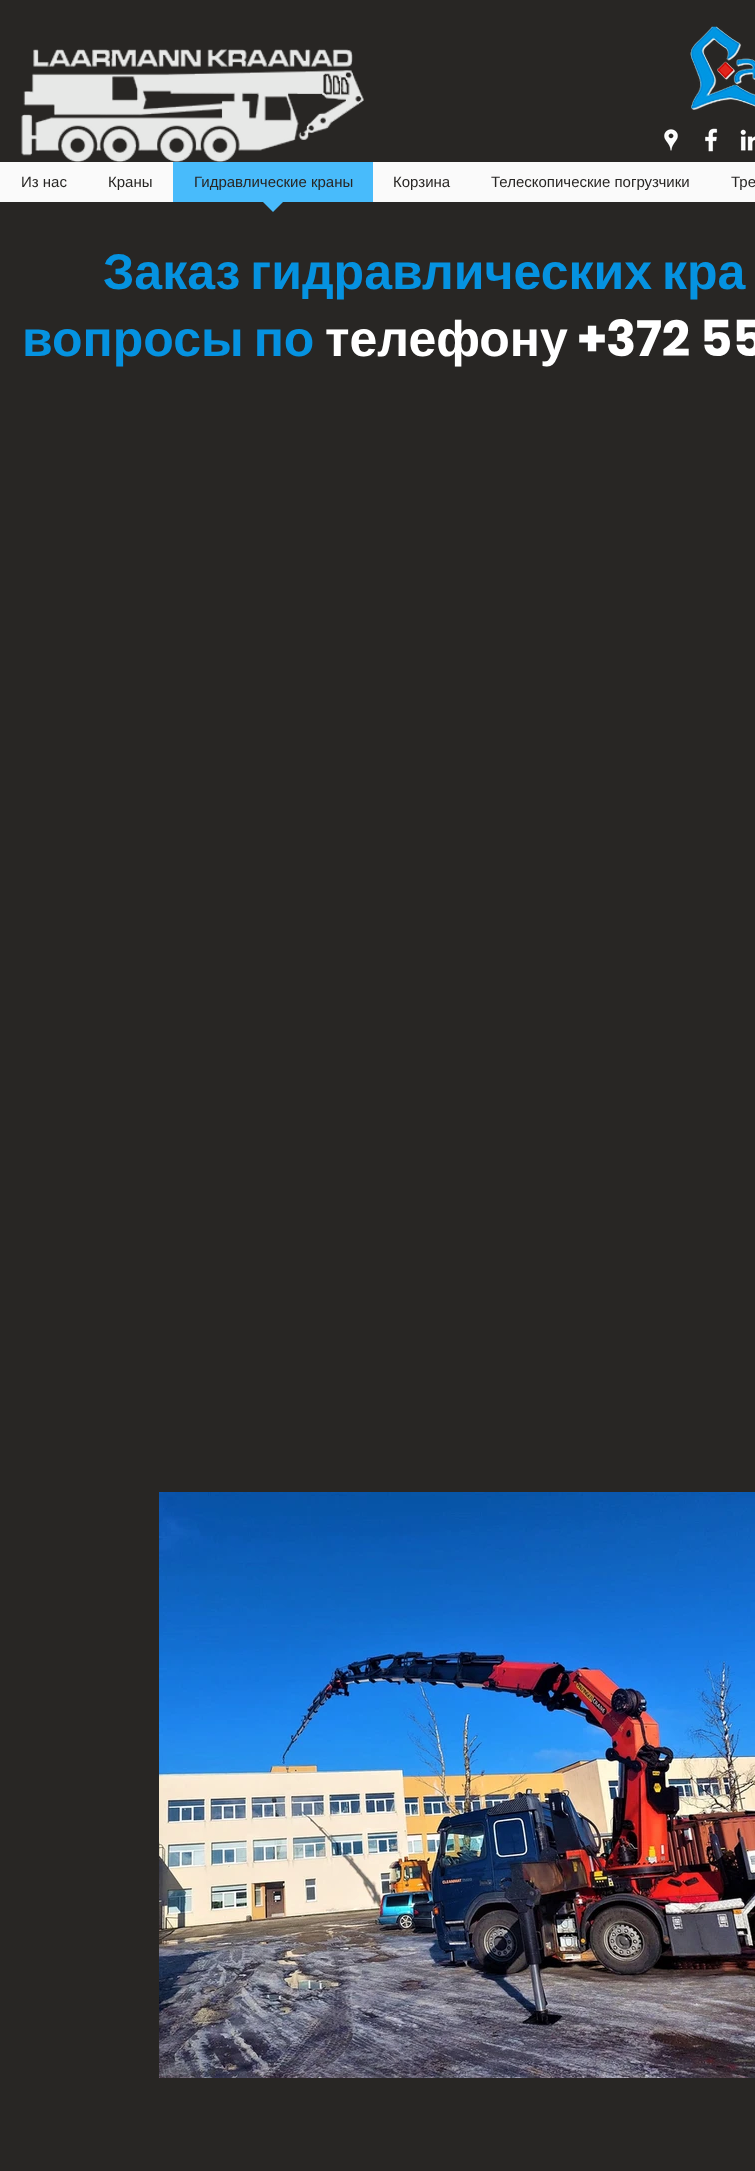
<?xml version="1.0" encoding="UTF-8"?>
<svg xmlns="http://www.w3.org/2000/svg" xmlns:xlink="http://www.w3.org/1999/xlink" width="755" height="2171">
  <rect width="100%" height="100%" fill="#282624" />
  <image x="21" y="49" width="343" height="113" xlink:href="image1.png" />
  <image x="691" y="27" width="64" height="83" xlink:href="image3.png" />
  <image x="690" y="26" width="65" height="83" xlink:href="image2.png" />
  <image x="664" y="129" width="14" height="22" xlink:href="image4.png" />
  <image x="705" y="128" width="13" height="24" xlink:href="image5.png" />
  <image x="740" y="129" width="15" height="22" xlink:href="image6.png" />
  <rect y="162" width="755" height="40" fill="#fafafa" />
  <rect x="173" y="162" width="200" height="40" fill="#48bbfb" />
  <path d="M 263 202 h 20 l -10 10 z" fill="#48bbfb" />
  <image x="159" y="1492" width="596" height="586" xlink:href="image7.png" />
  <text x="21" y="187" style="font-family: Liberation Sans; font-size: 15px; fill: #282624">Из нас</text>
  <text x="108" y="187" style="font-family: Liberation Sans; font-size: 15px; fill: #282624">Краны</text>
  <text x="194" y="187" style="font-family: Liberation Sans; font-size: 15px; fill: #282624">Гидравлические краны</text>
  <text x="393" y="187" style="font-family: Liberation Sans; font-size: 15px; fill: #282624">Корзина</text>
  <text x="491" y="187" style="font-family: Liberation Sans; font-size: 15px; fill: #282624">Телескопические погрузчики</text>
  <text x="731" y="187" style="font-family: Liberation Sans; font-size: 15px; fill: #282624">Тре</text>
  <text x="103" y="289" word-spacing="-4" style="font-family: Liberation Sans; font-size: 50px; font-weight: bold; fill: #0592e0">Заказ гидравлических кра</text>
  <text x="22" y="356" word-spacing="-4" style="font-family: Liberation Sans; font-size: 50px; font-weight: bold; fill: #0592e0">вопросы по</text>
  <text x="325" y="356" style="font-family: Liberation Sans; font-size: 50px; font-weight: bold; fill: #ffffff">телефону</text>
  <text x="578" y="356" style="font-family: Poppins; font-size: 50px; font-weight: bold; fill: #ffffff">+372 55</text>
</svg>
